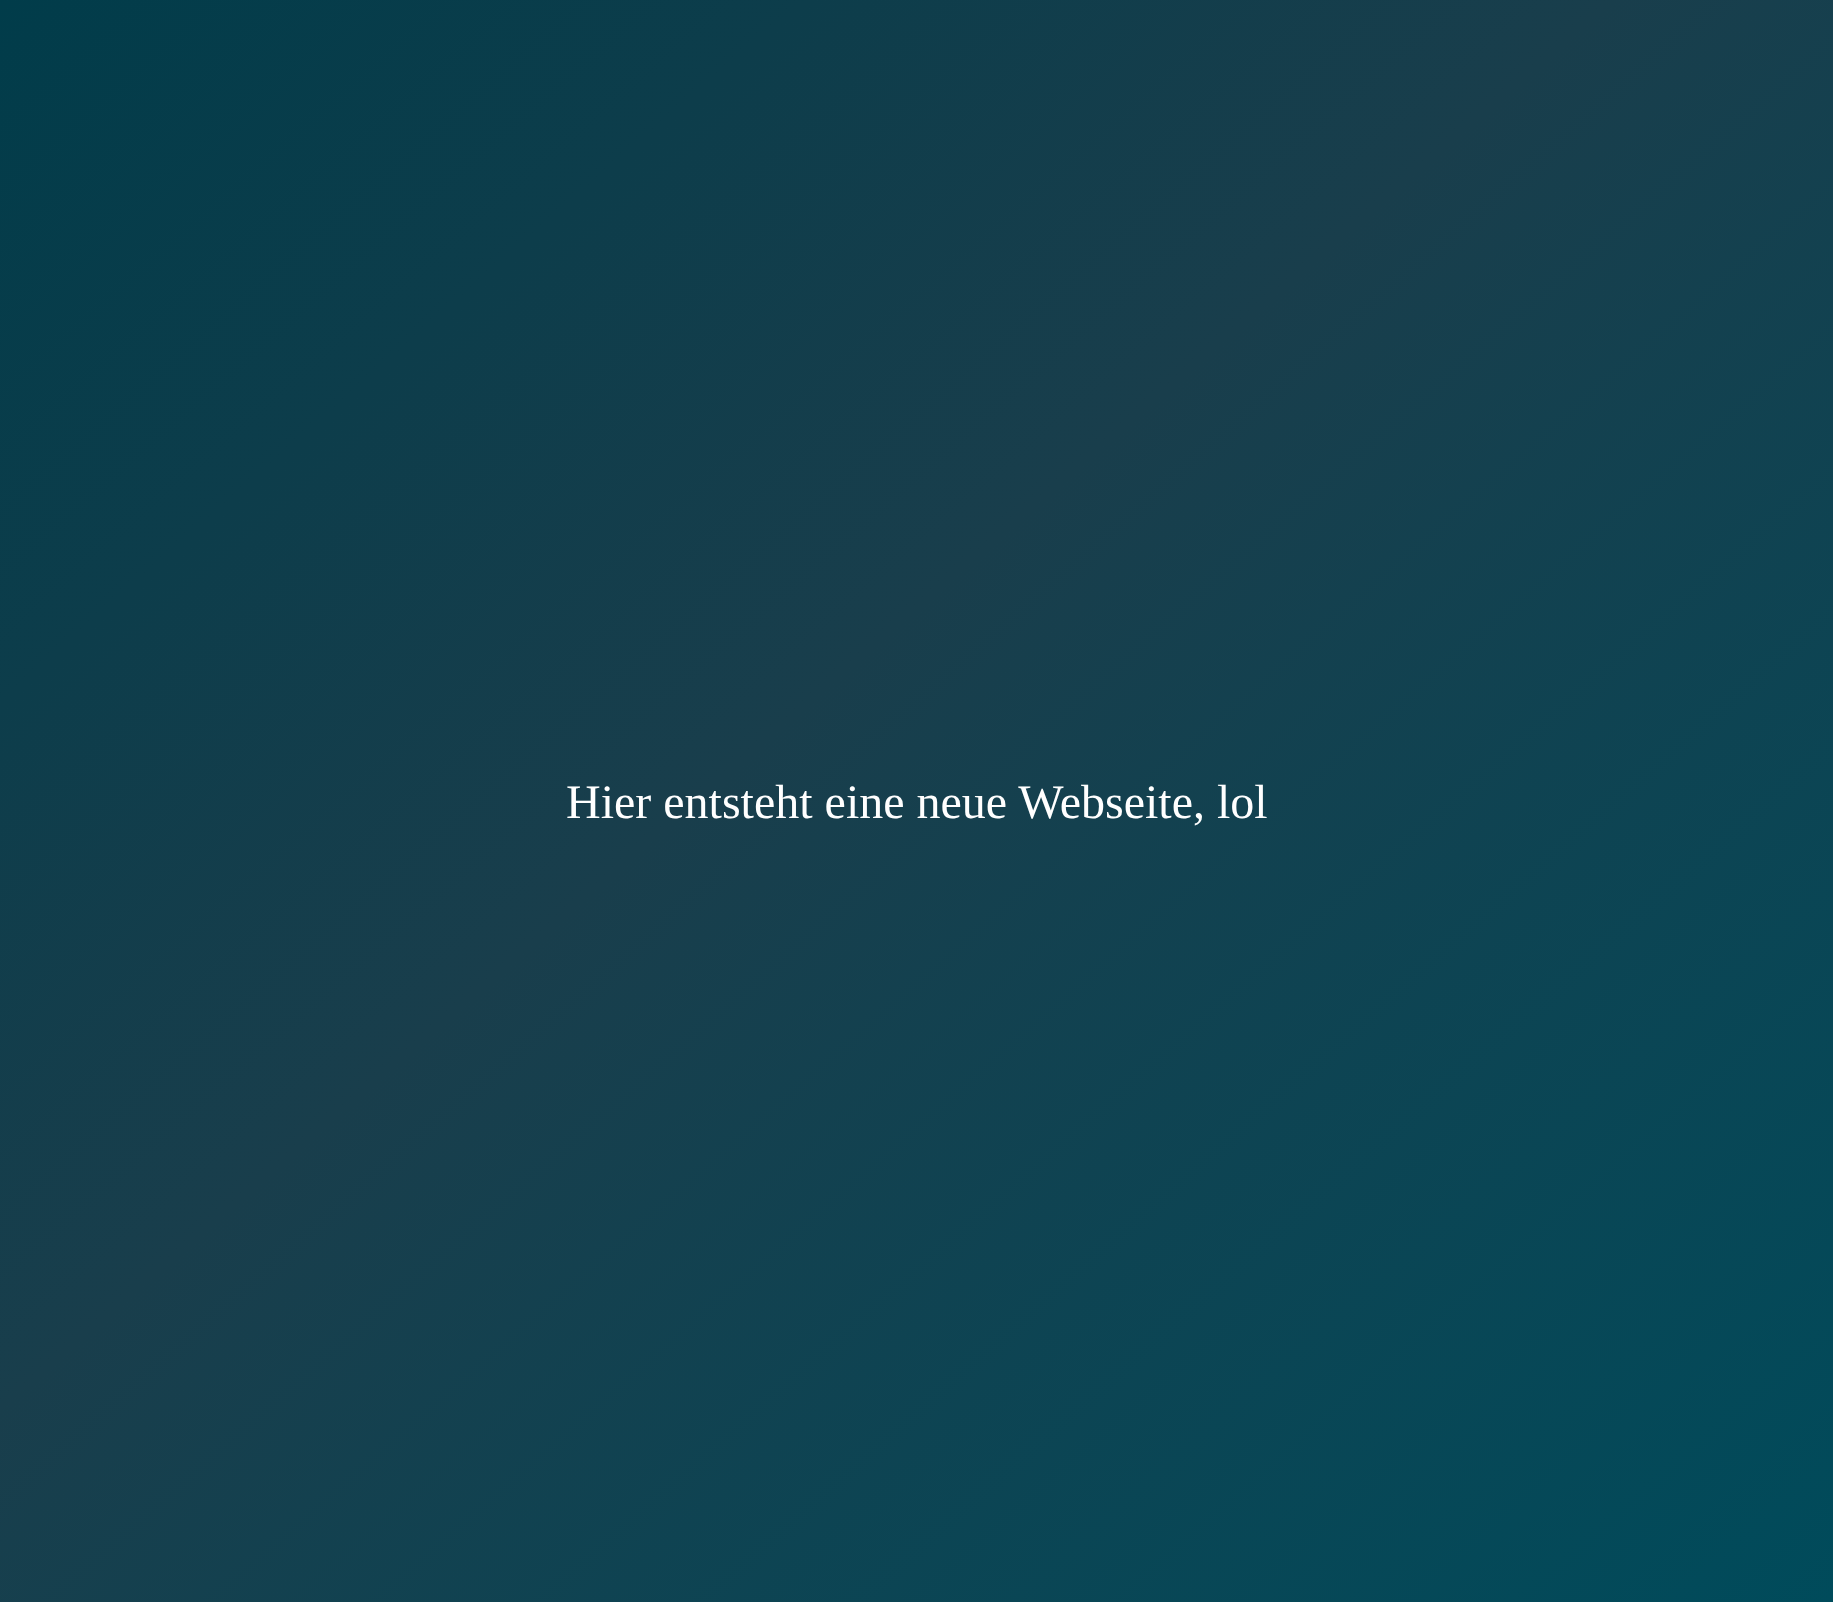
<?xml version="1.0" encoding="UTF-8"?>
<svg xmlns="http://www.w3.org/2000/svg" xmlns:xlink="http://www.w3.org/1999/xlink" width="1833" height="1602">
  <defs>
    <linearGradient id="g1" gradientUnits="userSpaceOnUse" x1="123" y1="-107" x2="1710" y2="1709"><stop offset="0" stop-color="#013c4a" /><stop offset="0.44" stop-color="#193e4c" /><stop offset="1" stop-color="#004b5b" /></linearGradient>
  </defs>
  <rect width="100%" height="100%" fill="#ffffff" />
  <rect width="1833" height="1602" fill="url(#g1)" />
  <text x="566" y="818" style="font-family: Liberation Serif; font-size: 48px; fill: #ffffff">Hier entsteht eine neue Webseite, lol</text>
</svg>
